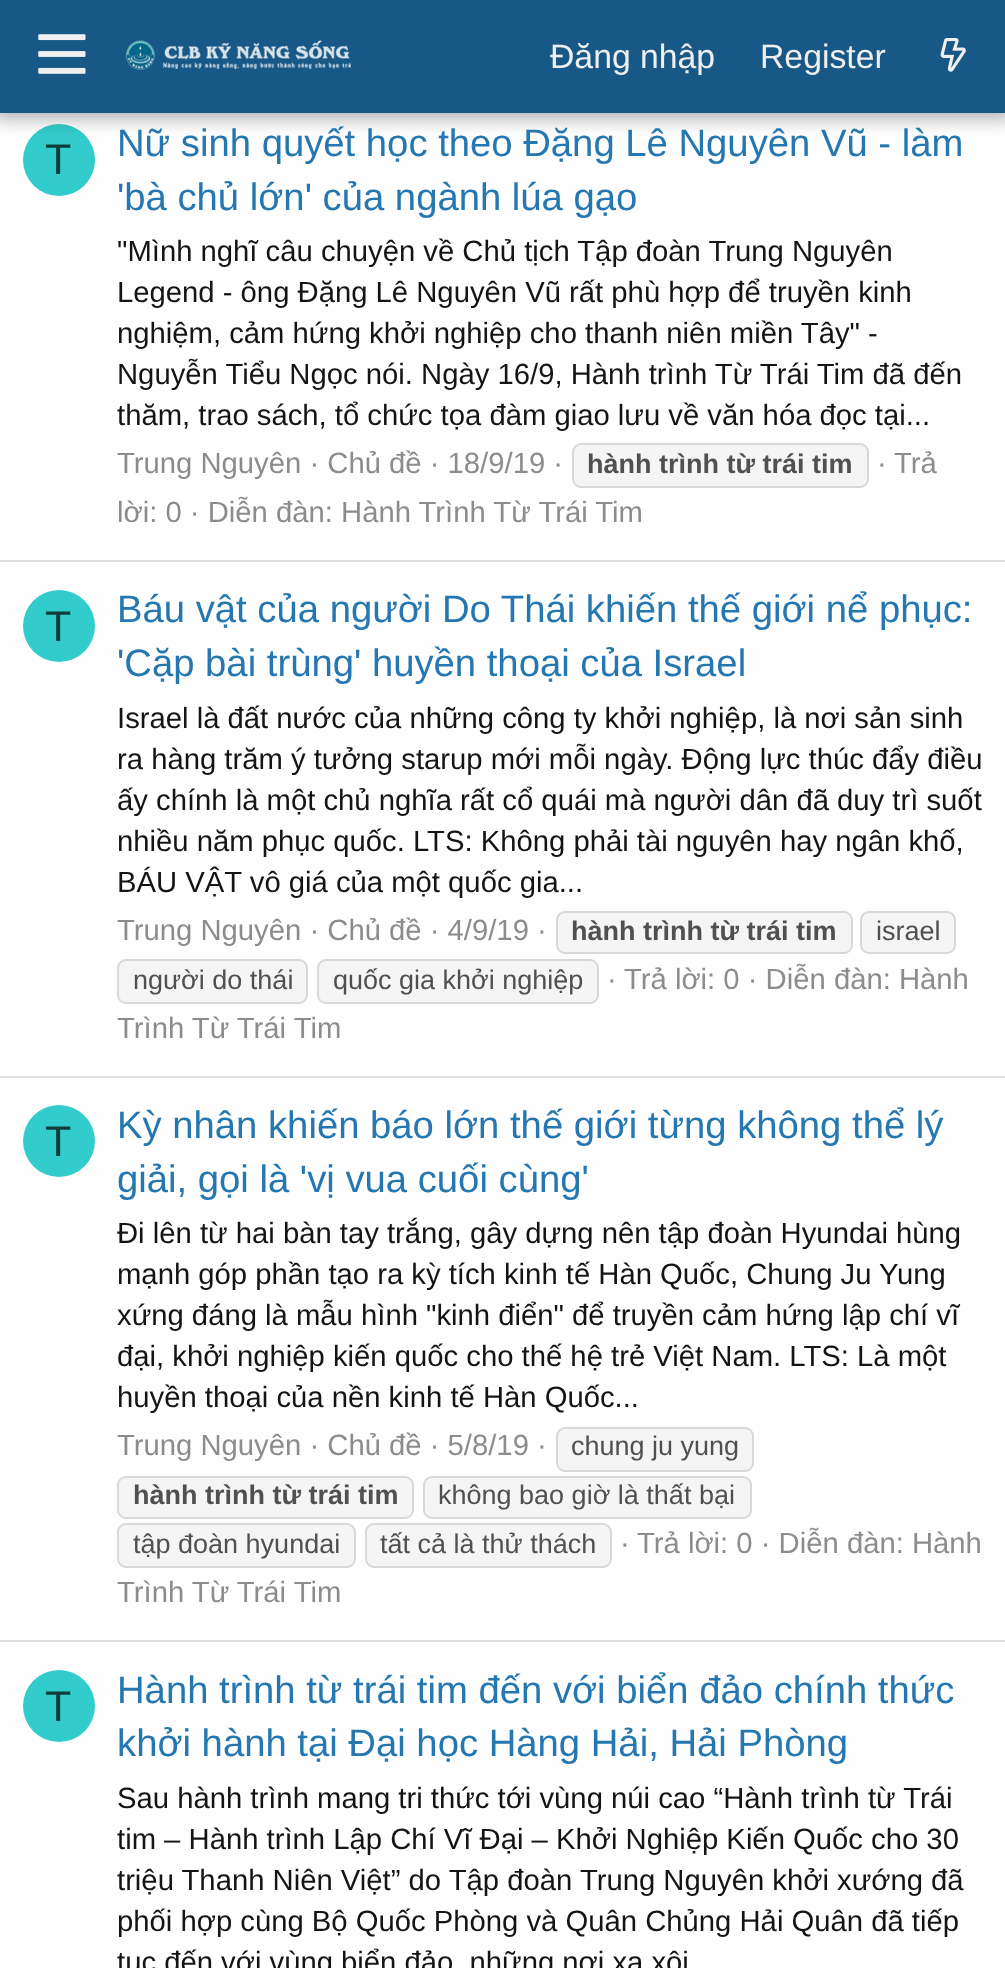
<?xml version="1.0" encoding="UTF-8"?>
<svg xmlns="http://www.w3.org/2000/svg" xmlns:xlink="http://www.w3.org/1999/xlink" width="1005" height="1968">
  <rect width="100%" height="100%" fill="#fefefe" />
  <circle cx="59" cy="160" r="36" fill="#33cccc" />
  <rect x="-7" y="-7" width="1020" height="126" fill="#000000" fill-opacity="0.3" filter="blur(9px)" />
  <rect width="1005" height="113" fill="#185886" />
  <image x="38" y="34" width="48" height="40" xlink:href="image1.png" />
  <image x="125" y="40" width="226" height="30" xlink:href="image2.png" />
  <image x="940" y="38" width="26" height="34" xlink:href="image3.png" />
  <rect x="573" y="444" width="295" height="43" rx="8" fill="#f5f5f5" stroke="#d8d8d8" stroke-width="2" />
  <rect y="560" width="1005" height="2" fill="#dfdfdf" />
  <circle cx="59" cy="626" r="36" fill="#33cccc" />
  <rect x="557" y="912" width="295" height="41" rx="8" fill="#f5f5f5" stroke="#d8d8d8" stroke-width="2" />
  <rect x="861" y="912" width="94" height="41" rx="8" fill="#f5f5f5" stroke="#d8d8d8" stroke-width="2" />
  <rect x="118" y="960" width="189" height="43" rx="8" fill="#f5f5f5" stroke="#d8d8d8" stroke-width="2" />
  <rect x="318" y="960" width="280" height="43" rx="8" fill="#f5f5f5" stroke="#d8d8d8" stroke-width="2" />
  <rect y="1076" width="1005" height="2" fill="#dfdfdf" />
  <circle cx="59" cy="1141" r="36" fill="#33cccc" />
  <rect x="557" y="1428" width="196" height="43" rx="8" fill="#f5f5f5" stroke="#d8d8d8" stroke-width="2" />
  <rect x="118" y="1477" width="295" height="41" rx="8" fill="#f5f5f5" stroke="#d8d8d8" stroke-width="2" />
  <rect x="424" y="1477" width="327" height="41" rx="8" fill="#f5f5f5" stroke="#d8d8d8" stroke-width="2" />
  <rect x="118" y="1524" width="237" height="43" rx="8" fill="#f5f5f5" stroke="#d8d8d8" stroke-width="2" />
  <rect x="366" y="1524" width="245" height="43" rx="8" fill="#f5f5f5" stroke="#d8d8d8" stroke-width="2" />
  <rect y="1640" width="1005" height="2" fill="#dfdfdf" />
  <circle cx="59" cy="1706" r="36" fill="#33cccc" />
  <text x="550" y="68" style="font-family: Liberation Sans; font-size: 33.75px; fill: #efefef">Đăng nhập</text>
  <text x="760" y="68" style="font-family: Liberation Sans; font-size: 33.75px; fill: #efefef">Register</text>
  <text x="45" y="174" style="font-family: Liberation Sans; font-size: 43px; fill: #0f3d3d">T</text>
  <text x="117" y="156" style="font-family: Liberation Sans; font-size: 38.25px; fill: #2577b1">Nữ sinh quyết học theo Đặng Lê Nguyên Vũ - làm</text>
  <text x="117" y="210" style="font-family: Liberation Sans; font-size: 38.25px; fill: #2577b1">'bà chủ lớn' của ngành lúa gạo</text>
  <text x="117" y="261" style="font-family: Liberation Sans; font-size: 29.25px; fill: #141414">"Mình nghĩ câu chuyện về Chủ tịch Tập đoàn Trung Nguyên</text>
  <text x="117" y="302" style="font-family: Liberation Sans; font-size: 29.25px; fill: #141414">Legend - ông Đặng Lê Nguyên Vũ rất phù hợp để truyền kinh</text>
  <text x="117" y="343" style="font-family: Liberation Sans; font-size: 29.25px; fill: #141414">nghiệm, cảm hứng khởi nghiệp cho thanh niên miền Tây" -</text>
  <text x="117" y="384" style="font-family: Liberation Sans; font-size: 29.25px; fill: #141414">Nguyễn Tiểu Ngọc nói. Ngày 16/9, Hành trình Từ Trái Tim đã đến</text>
  <text x="117" y="425" style="font-family: Liberation Sans; font-size: 29.25px; fill: #141414">thăm, trao sách, tổ chức tọa đàm giao lưu về văn hóa đọc tại...</text>
  <text x="117" y="473" style="font-family: Liberation Sans; font-size: 29.25px; fill: #8c8c8c">Trung Nguyên · Chủ đề · 18/9/19 ·</text>
  <text x="587" y="473" style="font-family: Liberation Sans; font-size: 27px; font-weight: bold; fill: #505050">hành trình từ trái tim</text>
  <text x="877" y="473" style="font-family: Liberation Sans; font-size: 29.25px; fill: #8c8c8c">·</text>
  <text x="894" y="473" style="font-family: Liberation Sans; font-size: 29.25px; fill: #8c8c8c">Trả</text>
  <text x="117" y="522" style="font-family: Liberation Sans; font-size: 29.25px; fill: #8c8c8c">lời: 0 · Diễn đàn: Hành Trình Từ Trái Tim</text>
  <text x="45" y="641" style="font-family: Liberation Sans; font-size: 43px; fill: #0f3d3d">T</text>
  <text x="117" y="622" style="font-family: Liberation Sans; font-size: 38.25px; fill: #2577b1">Báu vật của người Do Thái khiến thế giới nể phục:</text>
  <text x="117" y="676" style="font-family: Liberation Sans; font-size: 38.25px; fill: #2577b1">'Cặp bài trùng' huyền thoại của Israel</text>
  <text x="117" y="728" style="font-family: Liberation Sans; font-size: 29.25px; fill: #141414">Israel là đất nước của những công ty khởi nghiệp, là nơi sản sinh</text>
  <text x="117" y="769" style="font-family: Liberation Sans; font-size: 29.25px; fill: #141414">ra hàng trăm ý tưởng starup mới mỗi ngày. Động lực thúc đẩy điều</text>
  <text x="117" y="810" style="font-family: Liberation Sans; font-size: 29.25px; fill: #141414">ấy chính là một chủ nghĩa rất cổ quái mà người dân đã duy trì suốt</text>
  <text x="117" y="851" style="font-family: Liberation Sans; font-size: 29.25px; fill: #141414">nhiều năm phục quốc. LTS: Không phải tài nguyên hay ngân khố,</text>
  <text x="117" y="892" style="font-family: Liberation Sans; font-size: 29.25px; fill: #141414">BÁU VẬT vô giá của một quốc gia...</text>
  <text x="117" y="940" style="font-family: Liberation Sans; font-size: 29.25px; fill: #8c8c8c">Trung Nguyên · Chủ đề · 4/9/19 ·</text>
  <text x="571" y="940" style="font-family: Liberation Sans; font-size: 27px; font-weight: bold; fill: #505050">hành trình từ trái tim</text>
  <text x="876" y="940" style="font-family: Liberation Sans; font-size: 27px; fill: #505050">israel</text>
  <text x="133" y="989" style="font-family: Liberation Sans; font-size: 27px; fill: #505050">người do thái</text>
  <text x="333" y="989" style="font-family: Liberation Sans; font-size: 27px; fill: #505050">quốc gia khởi nghiệp</text>
  <text x="607" y="989" style="font-family: Liberation Sans; font-size: 29.25px; fill: #8c8c8c">·</text>
  <text x="624" y="989" style="font-family: Liberation Sans; font-size: 29.25px; fill: #8c8c8c">Trả lời: 0 · Diễn đàn: Hành</text>
  <text x="117" y="1038" style="font-family: Liberation Sans; font-size: 29.25px; fill: #8c8c8c">Trình Từ Trái Tim</text>
  <text x="45" y="1156" style="font-family: Liberation Sans; font-size: 43px; fill: #0f3d3d">T</text>
  <text x="117" y="1138" style="font-family: Liberation Sans; font-size: 38.25px; fill: #2577b1">Kỳ nhân khiến báo lớn thế giới từng không thể lý</text>
  <text x="117" y="1192" style="font-family: Liberation Sans; font-size: 38.25px; fill: #2577b1">giải, gọi là 'vị vua cuối cùng'</text>
  <text x="117" y="1243" style="font-family: Liberation Sans; font-size: 29.25px; fill: #141414">Đi lên từ hai bàn tay trắng, gây dựng nên tập đoàn Hyundai hùng</text>
  <text x="117" y="1284" style="font-family: Liberation Sans; font-size: 29.25px; fill: #141414">mạnh góp phần tạo ra kỳ tích kinh tế Hàn Quốc, Chung Ju Yung</text>
  <text x="117" y="1325" style="font-family: Liberation Sans; font-size: 29.25px; fill: #141414">xứng đáng là mẫu hình "kinh điển" để truyền cảm hứng lập chí vĩ</text>
  <text x="117" y="1366" style="font-family: Liberation Sans; font-size: 29.25px; fill: #141414">đại, khởi nghiệp kiến quốc cho thế hệ trẻ Việt Nam. LTS: Là một</text>
  <text x="117" y="1407" style="font-family: Liberation Sans; font-size: 29.25px; fill: #141414">huyền thoại của nền kinh tế Hàn Quốc...</text>
  <text x="117" y="1455" style="font-family: Liberation Sans; font-size: 29.25px; fill: #8c8c8c">Trung Nguyên · Chủ đề · 5/8/19 ·</text>
  <text x="571" y="1455" style="font-family: Liberation Sans; font-size: 27px; fill: #505050">chung ju yung</text>
  <text x="133" y="1504" style="font-family: Liberation Sans; font-size: 27px; font-weight: bold; fill: #505050">hành trình từ trái tim</text>
  <text x="438" y="1504" style="font-family: Liberation Sans; font-size: 27px; fill: #505050">không bao giờ là thất bại</text>
  <text x="133" y="1553" style="font-family: Liberation Sans; font-size: 27px; fill: #505050">tập đoàn hyundai</text>
  <text x="380" y="1553" style="font-family: Liberation Sans; font-size: 27px; fill: #505050">tất cả là thử thách</text>
  <text x="637" y="1553" style="font-family: Liberation Sans; font-size: 29.25px; fill: #8c8c8c">Trả lời: 0 · Diễn đàn: Hành</text>
  <text x="620" y="1553" style="font-family: Liberation Sans; font-size: 29.25px; fill: #8c8c8c">·</text>
  <text x="117" y="1602" style="font-family: Liberation Sans; font-size: 29.25px; fill: #8c8c8c">Trình Từ Trái Tim</text>
  <text x="45" y="1721" style="font-family: Liberation Sans; font-size: 43px; fill: #0f3d3d">T</text>
  <text x="117" y="1703" style="font-family: Liberation Sans; font-size: 38.25px; fill: #2577b1">Hành trình từ trái tim đến với biển đảo chính thức</text>
  <text x="117" y="1756" style="font-family: Liberation Sans; font-size: 38.25px; fill: #2577b1">khởi hành tại Đại học Hàng Hải, Hải Phòng</text>
  <text x="117" y="1808" style="font-family: Liberation Sans; font-size: 29.25px; fill: #141414">Sau hành trình mang tri thức tới vùng núi cao “Hành trình từ Trái</text>
  <text x="117" y="1849" style="font-family: Liberation Sans; font-size: 29.25px; fill: #141414">tim – Hành trình Lập Chí Vĩ Đại – Khởi Nghiệp Kiến Quốc cho 30</text>
  <text x="117" y="1890" style="font-family: Liberation Sans; font-size: 29.25px; fill: #141414">triệu Thanh Niên Việt” do Tập đoàn Trung Nguyên khởi xướng đã</text>
  <text x="117" y="1931" style="font-family: Liberation Sans; font-size: 29.25px; fill: #141414">phối hợp cùng Bộ Quốc Phòng và Quân Chủng Hải Quân đã tiếp</text>
  <text x="117" y="1972" style="font-family: Liberation Sans; font-size: 29.25px; fill: #141414">tục đến với vùng biển đảo, những nơi xa xôi</text>
</svg>
